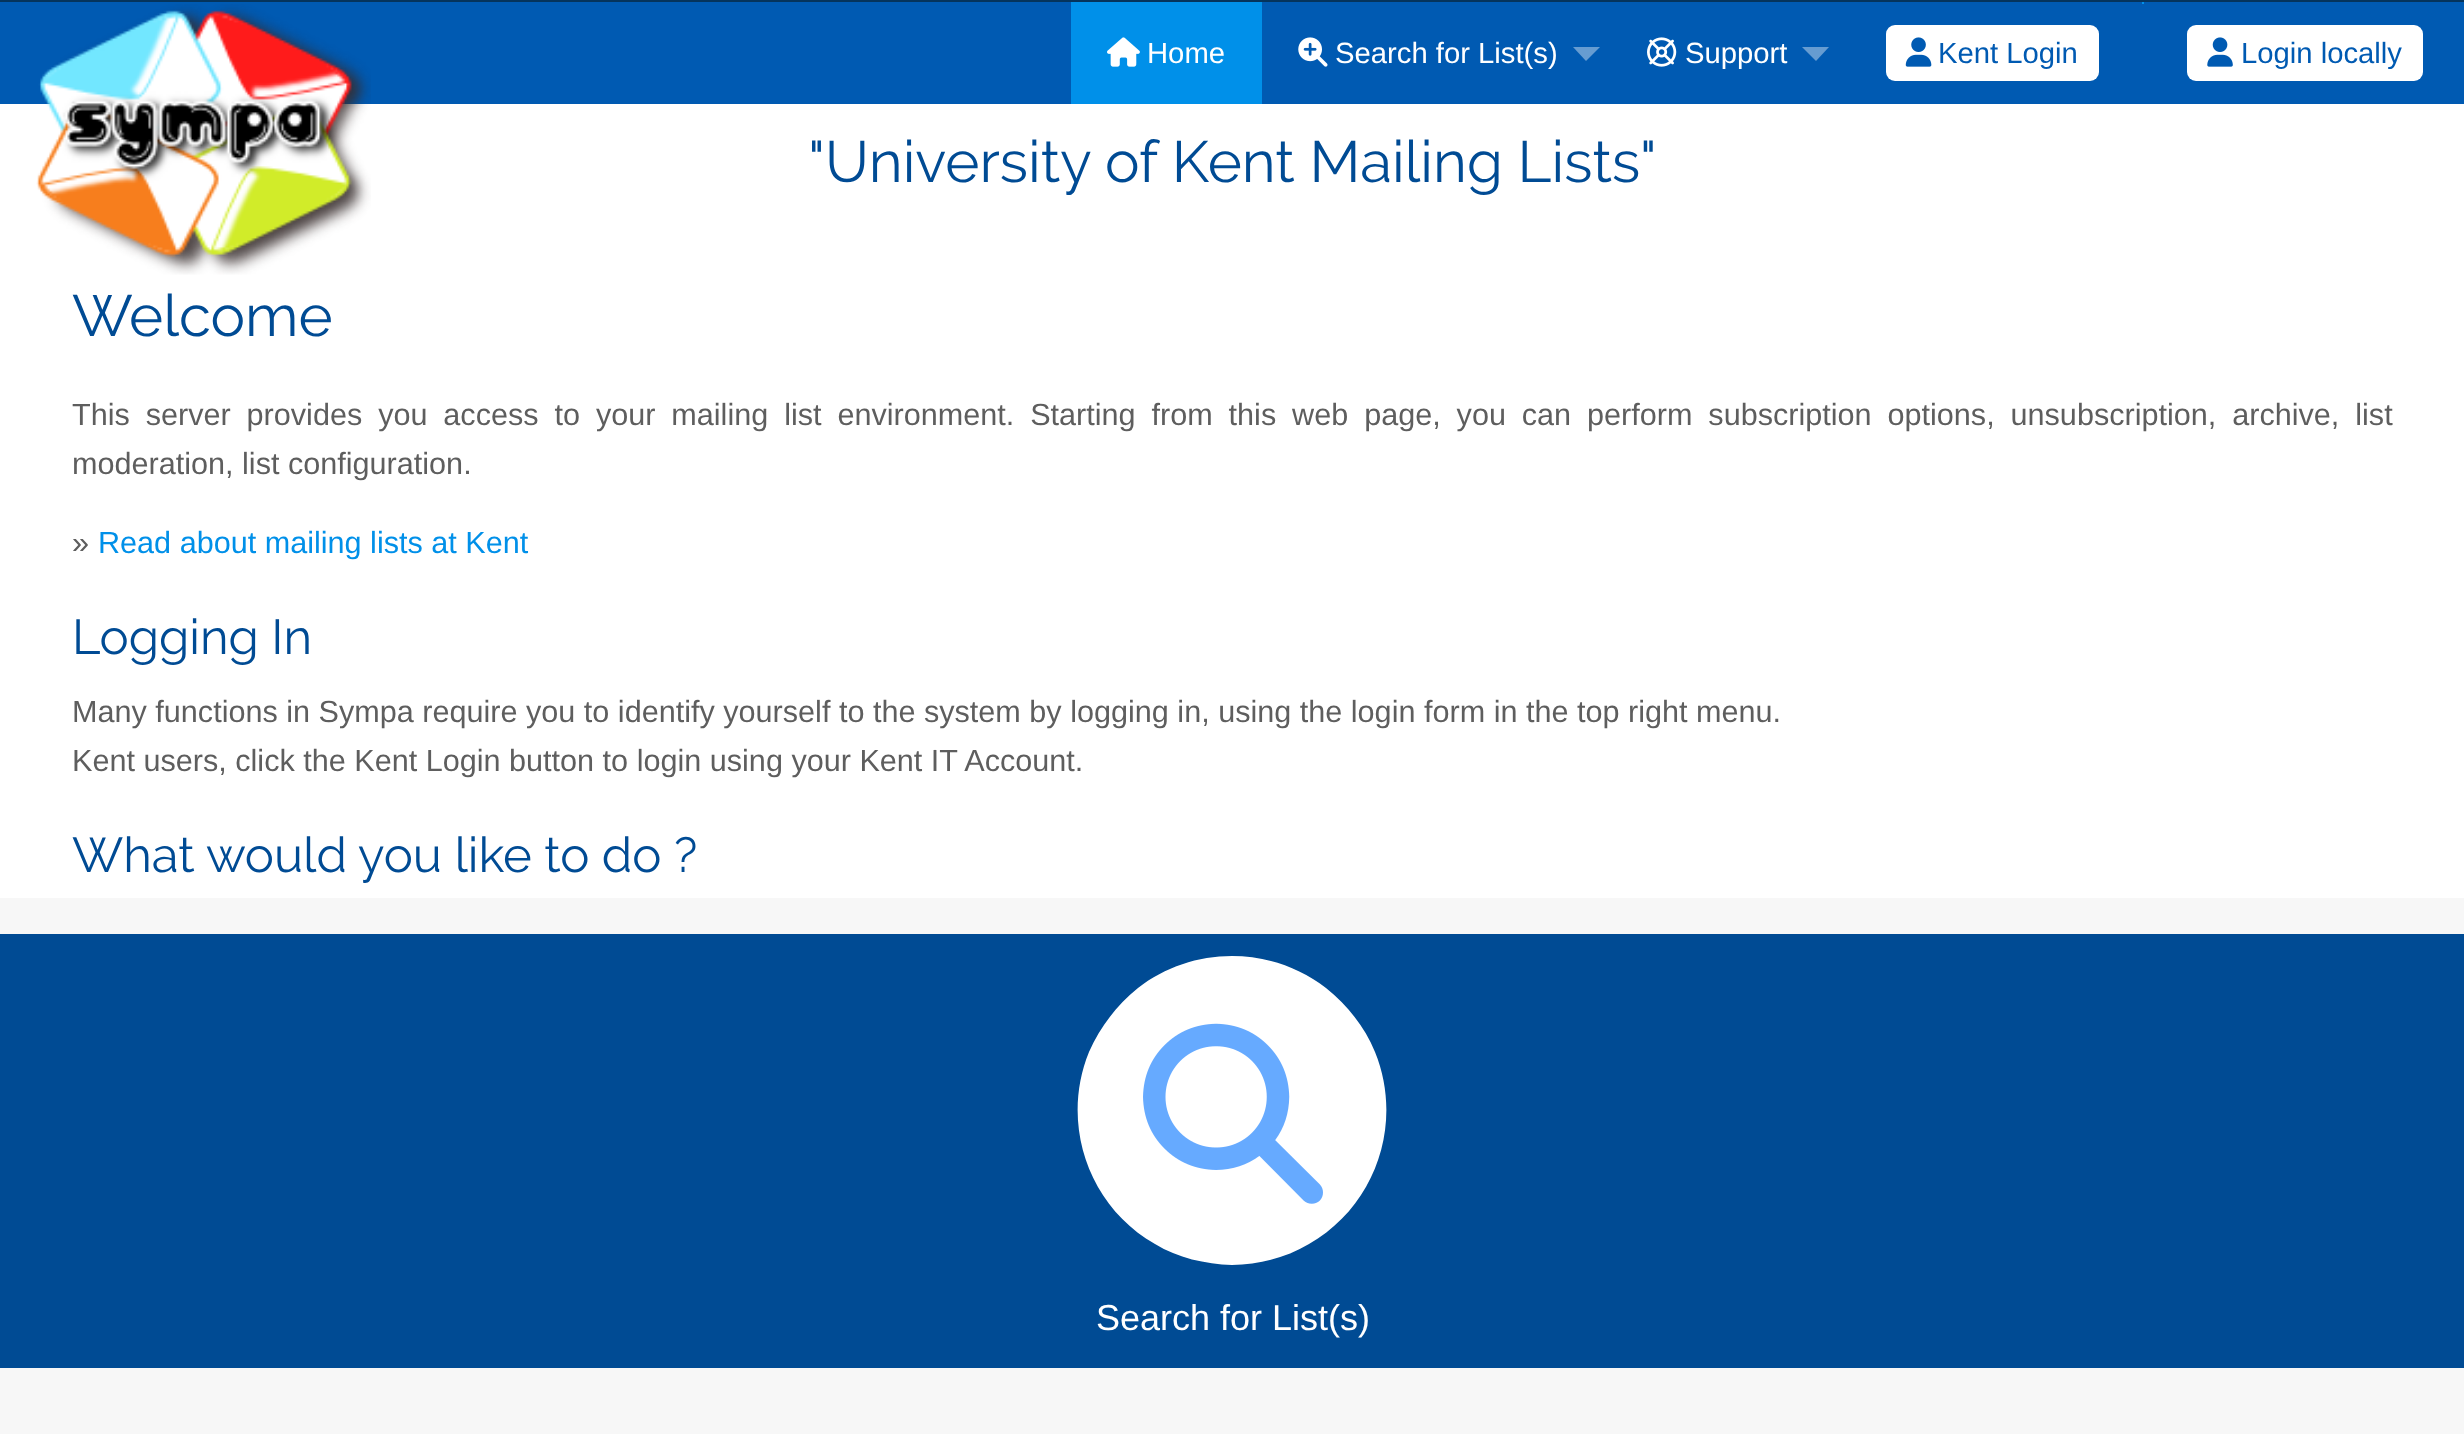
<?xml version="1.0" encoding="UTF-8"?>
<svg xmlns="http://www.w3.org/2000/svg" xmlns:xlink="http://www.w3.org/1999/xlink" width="2464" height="1434">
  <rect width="100%" height="100%" fill="#f7f7f7" />
  <rect width="2464" height="2" fill="#05345c" />
  <rect y="2" width="2464" height="102" fill="#005ab2" />
  <rect y="104" width="2464" height="794" fill="#ffffff" />
  <image x="36" y="4" width="335" height="271" xlink:href="image1.png" />
  <rect x="2142" y="2" width="2" height="2" fill="#0090e9" />
  <rect x="1071" y="2" width="191" height="102" fill="#0090e9" />
  <image x="1107" y="37" width="33" height="30" xlink:href="image2.png" />
  <image x="1298" y="37" width="30" height="30" xlink:href="image3.png" />
  <path d="M 1573 47 h 27 l -14 14 z" fill="#669cd1" />
  <image x="1647" y="37" width="30" height="30" xlink:href="image4.png" />
  <path d="M 1802 47 h 27 l -13 14 z" fill="#669cd1" />
  <rect x="1886" y="25" width="213" height="56" rx="9" fill="#ffffff" />
  <image x="1905" y="37" width="27" height="30" xlink:href="image5.png" />
  <rect x="2187" y="25" width="236" height="56" rx="9" fill="#ffffff" />
  <image x="2207" y="37" width="26" height="30" xlink:href="image6.png" />
  <rect y="934" width="2464" height="434" fill="#004b94" />
  <path d="M 1232 1265 c 27 -1 54 -7 77 -21 c 67 -38 95 -121 66 -192 c -10 -25 -28 -47 -49 -64 c -27 -21 -60 -32 -94 -32 c -34 0 -67 11 -94 32 c -21 17 -38 39 -49 64 c -29 71 -1 154 66 192 c 23 14 50 20 77 21 z" fill="#ffffff" />
  <image x="1143" y="1023" width="180" height="181" xlink:href="image7.png" />
  <text x="1147" y="63" style="font-family: Liberation Sans; font-size: 29.25px; fill: #ffffff">Home</text>
  <text x="1335" y="63" style="font-family: Liberation Sans; font-size: 29.25px; fill: #ffffff">Search for List(s)</text>
  <text x="1685" y="63" style="font-family: Liberation Sans; font-size: 29.25px; fill: #ffffff">Support</text>
  <text x="1938" y="63" style="font-family: Liberation Sans; font-size: 29.25px; fill: #005ab2">Kent Login</text>
  <text x="2241" y="63" style="font-family: Liberation Sans; font-size: 29.25px; fill: #005ab2">Login locally</text>
  <text x="808" y="182" style="font-family: Raleway; font-size: 58.1px; fill: #004b94">"University of Kent Mailing Lists"</text>
  <text x="72" y="336" style="font-family: Raleway; font-size: 58.1px; fill: #004b94">Welcome</text>
  <text x="72" y="425" word-spacing="7.4" style="font-family: Liberation Sans; font-size: 30.6px; fill: #5e5e5e">This server provides you access to your mailing list environment. Starting from this web page, you can perform subscription options, unsubscription, archive, list</text>
  <text x="72" y="474" style="font-family: Liberation Sans; font-size: 30.6px; fill: #5e5e5e">moderation, list configuration.</text>
  <text x="72" y="553" style="font-family: Liberation Sans; font-size: 30.6px; fill: #5e5e5e">»</text>
  <text x="98" y="553" style="font-family: Liberation Sans; font-size: 30.6px; fill: #0090e9">Read about mailing lists at Kent</text>
  <text x="72" y="654" style="font-family: Raleway; font-size: 49px; fill: #004b94">Logging In</text>
  <text x="72" y="722" style="font-family: Liberation Sans; font-size: 30.6px; fill: #5e5e5e">Many functions in Sympa require you to identify yourself to the system by logging in, using the login form in the top right menu.</text>
  <text x="72" y="771" style="font-family: Liberation Sans; font-size: 30.6px; fill: #5e5e5e">Kent users, click the Kent Login button to login using your Kent IT Account.</text>
  <text x="72" y="872" style="font-family: Raleway; font-size: 49px; fill: #004b94">What would you like to do ?</text>
  <text x="1096" y="1330" style="font-family: Liberation Sans; font-size: 36px; fill: #ffffff">Search for List(s)</text>
</svg>
